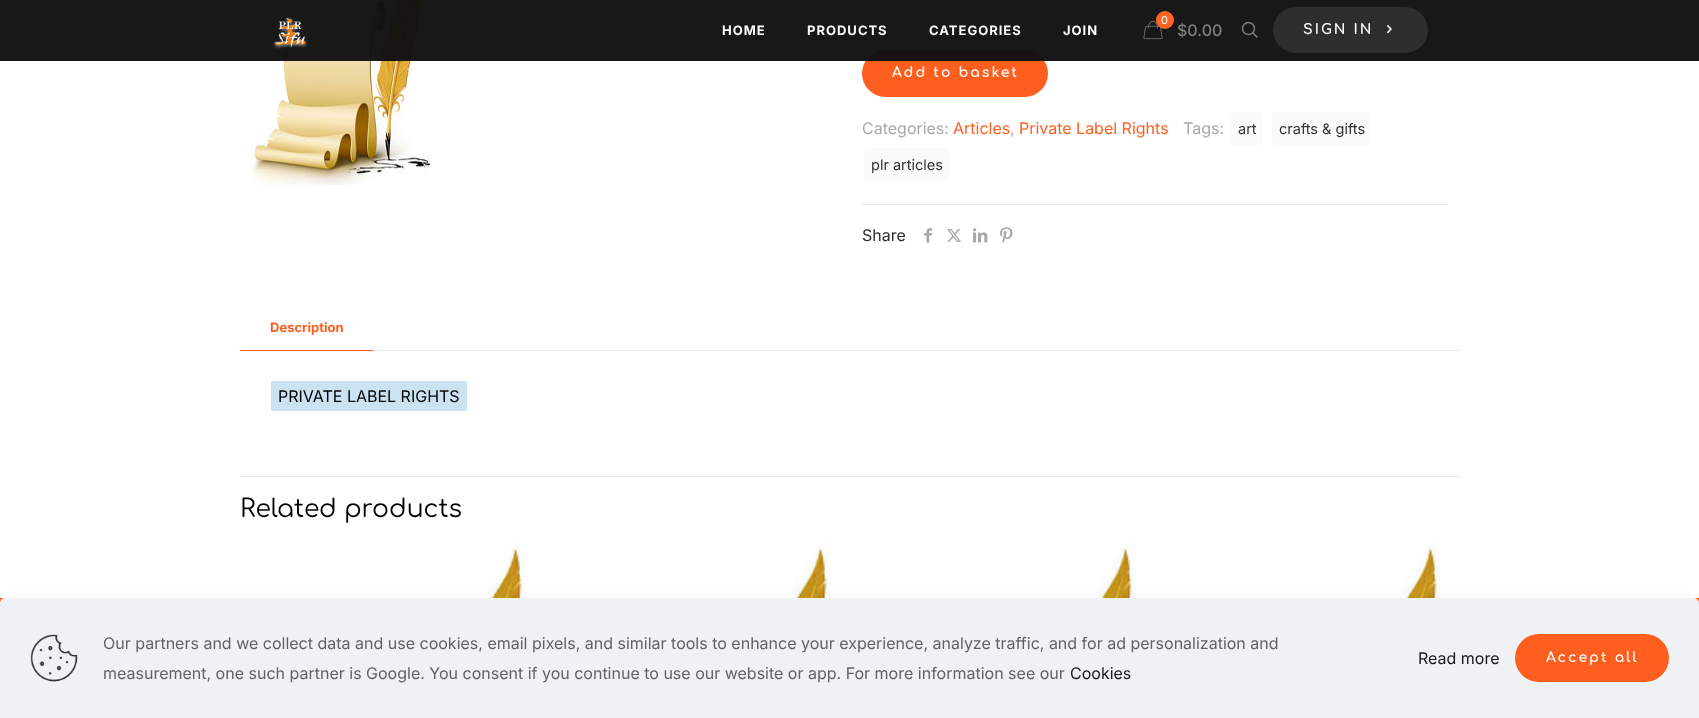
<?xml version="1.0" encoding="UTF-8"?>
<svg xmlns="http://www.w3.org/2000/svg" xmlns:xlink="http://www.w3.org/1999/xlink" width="1699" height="718">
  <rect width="100%" height="100%" fill="#ffffff" />
  <image x="252" y="0" width="180" height="185" xlink:href="image4.png" />
  <rect x="862" y="50" width="186" height="47" rx="23.5" fill="#ff5f1e" />
  <rect width="1699" height="61" fill="#111111" fill-opacity="0.97" />
  <image x="273" y="17" width="34" height="32" xlink:href="image1.png" />
  <image x="1143" y="20" width="20" height="20" xlink:href="image2.png" />
  <circle cx="1165" cy="20" r="9" fill="#ff6425" />
  <circle cx="1248.5" cy="28.5" r="6" fill="none" stroke="#7e7e7e" stroke-width="1.5" />
  <path d="M 1252.5 32.5 l 5 5" fill="none" stroke="#7e7e7e" stroke-width="1.5" />
  <rect x="1273" y="7" width="155" height="46" rx="23" fill="#2e2e2e" />
  <image x="1387" y="25" width="5" height="9" xlink:href="image3.png" />
  <rect x="1231" y="112" width="32" height="34" rx="4" fill="#fafafa" />
  <rect x="1272" y="112" width="99" height="34" rx="4" fill="#fafafa" />
  <rect x="864" y="148" width="85" height="34" rx="4" fill="#fafafa" />
  <rect x="862" y="204" width="586" height="1" fill="#ebebeb" />
  <image x="924" y="228" width="8" height="15" xlink:href="image5.png" />
  <image x="947" y="228" width="14" height="14" xlink:href="image6.png" />
  <image x="973" y="228" width="15" height="15" xlink:href="image7.png" />
  <image x="1000" y="227" width="13" height="17" xlink:href="image8.png" />
  <rect x="373" y="350" width="1087" height="1" fill="#ebebeb" />
  <rect x="240" y="350" width="133" height="1" fill="#ff5f1e" />
  <rect x="271" y="381" width="196" height="30" fill="#cbe2f2" />
  <rect x="240" y="476" width="1220" height="1" fill="#ebebeb" />
  <image x="298" y="542" width="228" height="56" xlink:href="image9.png" />
  <image x="603" y="542" width="228" height="56" xlink:href="image9.png" />
  <image x="908" y="542" width="228" height="56" xlink:href="image9.png" />
  <image x="1213" y="542" width="228" height="56" xlink:href="image10.png" />
  <rect y="598" width="5" height="5" fill="#ff5f1e" />
  <rect x="1694" y="598" width="5" height="5" fill="#ff5f1e" />
  <rect y="613" width="1699" height="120" rx="5" fill="#010727" fill-opacity="0.13" filter="blur(15px)" />
  <rect y="598" width="1699" height="120" rx="5" fill="#eef2f5" />
  <image x="30" y="634" width="48" height="48" xlink:href="image11.png" />
  <rect x="1515" y="634" width="154" height="48" rx="24" fill="#ff5f1e" />
  <text x="722" y="35" style="font-family: Inter; font-size: 13px; font-weight: bold; letter-spacing: 1px; fill: #ffffff">HOME</text>
  <text x="807" y="35" style="font-family: Inter; font-size: 13px; font-weight: bold; letter-spacing: 1px; fill: #f8f8f8">PRODUCTS</text>
  <text x="929" y="35" style="font-family: Inter; font-size: 13px; font-weight: bold; letter-spacing: 1px; fill: #f8f8f8">CATEGORIES</text>
  <text x="1063" y="35" style="font-family: Inter; font-size: 13px; font-weight: bold; letter-spacing: 1px; fill: #ffffff">JOIN</text>
  <text x="1161" y="24" style="font-family: Inter; font-size: 11px; fill: #ffffff">0</text>
  <text x="1177" y="36" style="font-family: Inter; font-size: 16px; font-weight: 500; fill: #7e7e7e">$0.00</text>
  <text x="1303" y="34" style="font-family: Comfortaa; font-size: 14px; font-weight: bold; letter-spacing: 2px; fill: #ffffff">SIGN IN</text>
  <text x="892" y="77" style="font-family: Comfortaa; font-size: 14px; font-weight: bold; letter-spacing: 2px; fill: #ffffff">Add to basket</text>
  <text x="862" y="134" style="font-family: Inter; font-size: 16px; fill: #a8a8a8">Categories:</text>
  <text x="1183" y="134" style="font-family: Inter; font-size: 16px; fill: #a8a8a8">Tags:</text>
  <text x="1238" y="134" style="font-family: Inter; font-size: 14.5px; fill: #323232">art</text>
  <text x="1279" y="134" style="font-family: Inter; font-size: 14.5px; fill: #323232">crafts &amp; gifts</text>
  <text x="871" y="170" style="font-family: Inter; font-size: 14.5px; fill: #323232">plr articles</text>
  <text x="953" y="134" style="font-family: Inter; font-size: 16px; fill: #ff5f1e">Articles</text>
  <text x="1010" y="134" style="font-family: Inter; font-size: 16px; fill: #a8a8a8">,</text>
  <text x="1019" y="134" style="font-family: Inter; font-size: 16px; fill: #ff5f1e">Private Label Rights</text>
  <text x="862" y="241" style="font-family: Inter; font-size: 16px; fill: #2b2b2b">Share</text>
  <text x="270" y="332" style="font-family: Inter; font-size: 13px; font-weight: bold; fill: #ff5f1e">Description</text>
  <text x="278" y="402" style="font-family: Inter; font-size: 16px; fill: #000000">PRIVATE LABEL RIGHTS</text>
  <text x="240" y="517" style="font-family: Comfortaa; font-size: 25px; fill: #000000">Related products</text>
  <text x="103" y="649" style="font-family: Inter; font-size: 16px; fill: #626262">Our partners and we collect data and use cookies, email pixels, and similar tools to enhance your experience, analyze traffic, and for ad personalization and</text>
  <text x="103" y="679" style="font-family: Inter; font-size: 16px; fill: #626262">measurement, one such partner is Google. You consent if you continue to use our website or app. For more information see our</text>
  <text x="1070" y="679" style="font-family: Inter; font-size: 16px; fill: #161922">Cookies</text>
  <text x="1418" y="664" style="font-family: Inter; font-size: 16px; fill: #161922">Read more</text>
  <text x="1546" y="662" style="font-family: Comfortaa; font-size: 14px; font-weight: bold; letter-spacing: 2px; fill: #ffffff">Accept all</text>
</svg>
